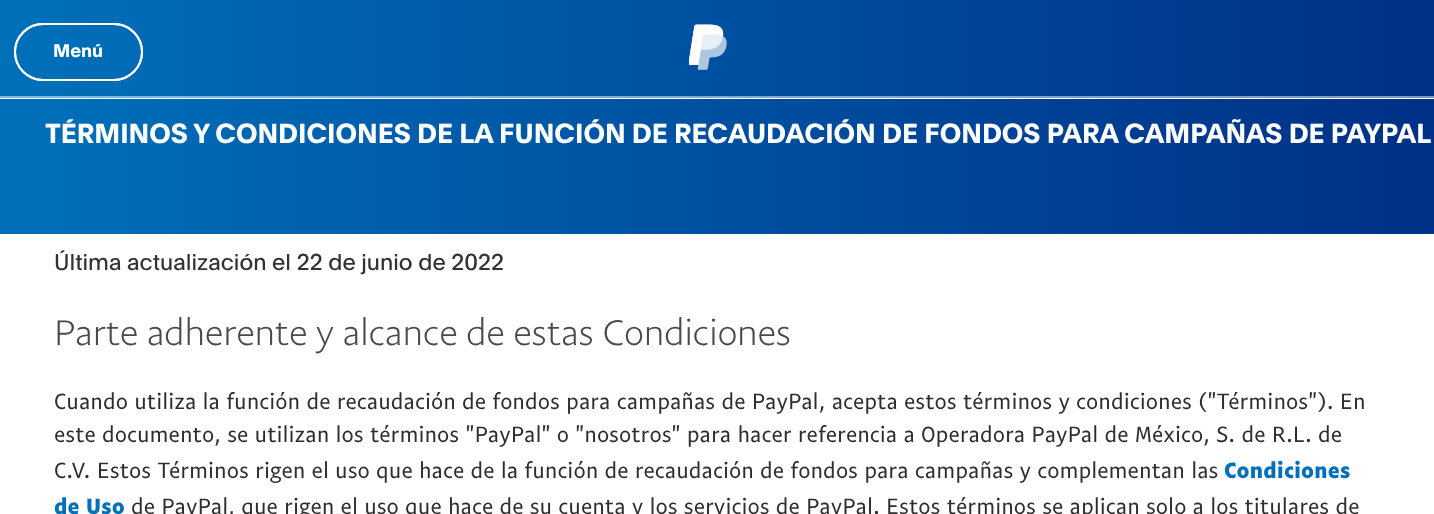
<?xml version="1.0" encoding="UTF-8"?>
<svg xmlns="http://www.w3.org/2000/svg" xmlns:xlink="http://www.w3.org/1999/xlink" width="1434" height="514">
  <defs>
    <linearGradient id="g1" gradientUnits="userSpaceOnUse" x1="0" y1="48" x2="1434" y2="48"><stop offset="0" stop-color="#0070ba" /><stop offset="1" stop-color="#003087" /></linearGradient>
    <linearGradient id="g2" gradientUnits="userSpaceOnUse" x1="0" y1="48" x2="1434" y2="48"><stop offset="0" stop-color="#80b8dd" /><stop offset="1" stop-color="#8098c3" /></linearGradient>
    <linearGradient id="g3" gradientUnits="userSpaceOnUse" x1="0" y1="167" x2="1434" y2="166"><stop offset="0" stop-color="#0070ba" /><stop offset="1" stop-color="#003087" /></linearGradient>
  </defs>
  <rect width="100%" height="100%" fill="#ffffff" />
  <rect width="1434" height="96" fill="url(#g1)" />
  <rect y="96" width="1434" height="2" fill="url(#g2)" />
  <rect x="15" y="24" width="127" height="56" rx="28" fill="none" stroke="#ffffff" stroke-width="2" />
  <rect x="15" y="24" width="127" height="56" rx="28" fill="none" stroke="#ffffff" stroke-width="2" />
  <image x="689" y="24" width="38" height="46" xlink:href="image1.png" />
  <rect y="99" width="1434" height="135" fill="url(#g3)" />
  <text x="53" y="57" style="font-family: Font; font-size: 18px; font-weight: bold; fill: #ffffff">Menú</text>
  <text x="45" y="143" style="font-family: Font; font-size: 27px; font-weight: bold; fill: #ffffff">TÉRMINOS Y CONDICIONES DE LA FUNCIÓN DE RECAUDACIÓN DE FONDOS PARA CAMPAÑAS DE PAYPAL</text>
  <text x="54" y="270" style="font-family: Font; font-size: 22.5px; fill: #333333">Última actualización el 22 de junio de 2022</text>
  <text x="54" y="345" style="font-family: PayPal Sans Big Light; font-size: 36px; font-weight: 300; fill: #4a4a4a">Parte adherente y alcance de estas Condiciones</text>
  <text x="54" y="409" style="font-family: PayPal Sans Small; font-size: 22.5px; fill: #2c2e2f">Cuando utiliza la función de recaudación de fondos para campañas de PayPal, acepta estos términos y condiciones ("Términos"). En</text>
  <text x="54" y="442" style="font-family: PayPal Sans Small; font-size: 22.5px; fill: #2c2e2f">este documento, se utilizan los términos "PayPal" o "nosotros" para hacer referencia a Operadora PayPal de México, S. de R.L. de</text>
  <text x="54" y="478" style="font-family: PayPal Sans Small; font-size: 22.5px; fill: #2c2e2f">C.V. Estos Términos rigen el uso que hace de la función de recaudación de fondos para campañas y complementan las</text>
  <text x="1224" y="478" style="font-family: PayPal Sans Small; font-size: 22.5px; font-weight: bold; fill: #0070ba">Condiciones</text>
  <text x="54" y="514" style="font-family: PayPal Sans Small; font-size: 22.5px; font-weight: bold; fill: #0070ba">de Uso</text>
  <text x="131" y="514" style="font-family: PayPal Sans Small; font-size: 22.5px; fill: #2c2e2f">de PayPal, que rigen el uso que hace de su cuenta y los servicios de PayPal. Estos términos se aplican solo a los titulares de</text>
</svg>
